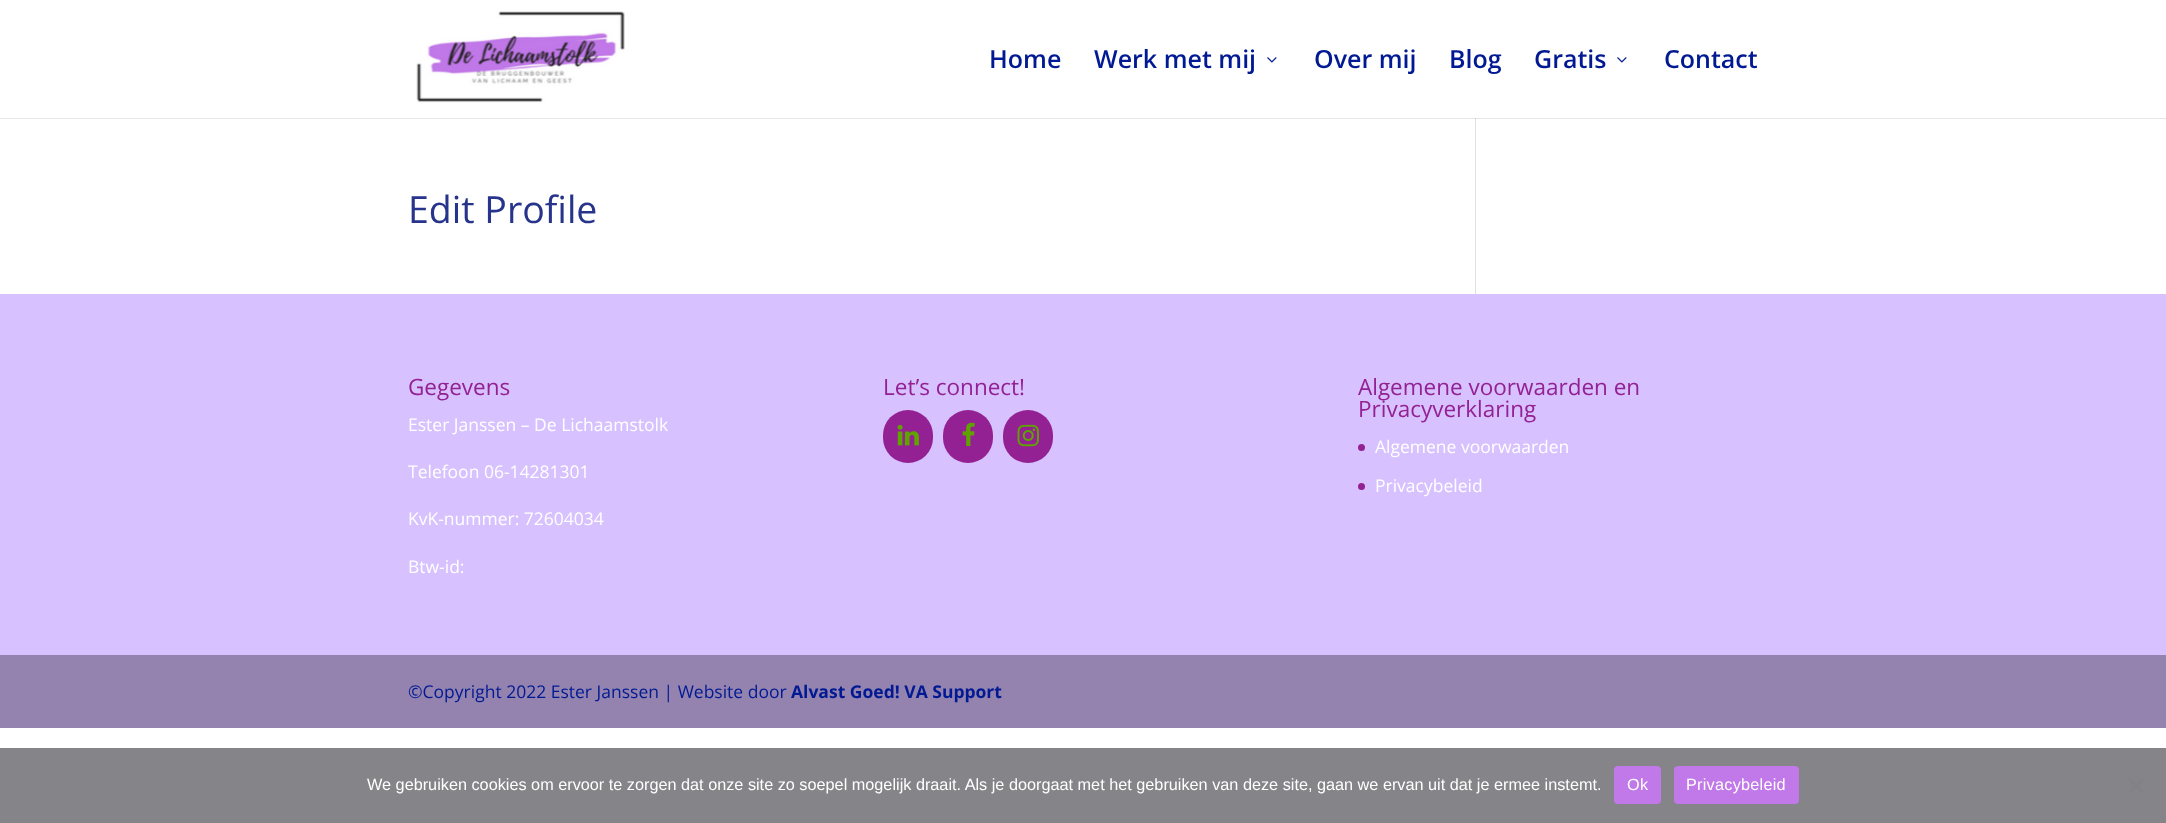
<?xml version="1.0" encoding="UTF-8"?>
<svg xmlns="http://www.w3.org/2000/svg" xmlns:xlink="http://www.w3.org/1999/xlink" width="2166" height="823">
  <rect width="100%" height="100%" fill="#ffffff" />
  <rect y="118" width="2166" height="1" fill="#e6e6e6" />
  <image x="416" y="11" width="209" height="92" xlink:href="image1.png" />
  <image x="1267" y="57" width="10" height="6" xlink:href="image2.png" />
  <image x="1617" y="57" width="10" height="6" xlink:href="image2.png" />
  <rect x="1475" y="118" width="1" height="176" fill="#e2e2e2" />
  <rect x="1475" y="118" width="1" height="1" fill="#cbcbcb" />
  <rect y="294" width="2166" height="361" fill="#d7c1ff" />
  <rect x="883" y="410" width="50" height="53" rx="25" fill="#942193" />
  <image x="897" y="424" width="22" height="22" xlink:href="image3.png" />
  <rect x="943" y="410" width="50" height="53" rx="25" fill="#942193" />
  <image x="962" y="422" width="13" height="24" xlink:href="image4.png" />
  <rect x="1003" y="410" width="50" height="53" rx="25" fill="#942193" />
  <image x="1017" y="424" width="22" height="23" xlink:href="image5.png" />
  <circle cx="1361.5" cy="447.5" r="3.5" fill="#942193" />
  <circle cx="1361.5" cy="486.5" r="3.5" fill="#942193" />
  <rect y="655" width="2166" height="73" fill="#9383ae" />
  <rect y="748" width="2166" height="75" fill="#848489" />
  <rect x="1614" y="766" width="47" height="38" rx="4" fill="#c178e8" />
  <rect x="1674" y="766" width="125" height="38" rx="4" fill="#c178e8" />
  <path d="M 2142 778.5 l 2 1.5 l -13.5 13.5 l -2 -2 z" fill="#828285" />
  <path d="M 2128.5 780 l 2 -1.5 l 13.5 13 l -2 2 z" fill="#828285" />
  <text x="989" y="68" style="font-family: Open Sans; font-size: 25px; font-weight: 600; fill: #011993">Home</text>
  <text x="1094" y="68" style="font-family: Open Sans; font-size: 25px; font-weight: 600; fill: #011993">Werk met mij</text>
  <text x="1314" y="68" style="font-family: Open Sans; font-size: 25px; font-weight: 600; fill: #011993">Over mij</text>
  <text x="1449" y="68" style="font-family: Open Sans; font-size: 25px; font-weight: 600; fill: #011993">Blog</text>
  <text x="1534" y="68" style="font-family: Open Sans; font-size: 25px; font-weight: 600; fill: #011993">Gratis</text>
  <text x="1664" y="68" style="font-family: Open Sans; font-size: 25px; font-weight: 600; fill: #011993">Contact</text>
  <text x="408" y="223" style="font-family: Open Sans; font-size: 37.5px; fill: #27348b">Edit Profile</text>
  <text x="408" y="395" style="font-family: Open Sans; font-size: 22.5px; fill: #942193">Gegevens</text>
  <text x="408" y="431" style="font-family: Open Sans; font-size: 17.5px; fill: #ffffff">Ester Janssen – De Lichaamstolk</text>
  <text x="408" y="478" style="font-family: Open Sans; font-size: 17.5px; fill: #ffffff">Telefoon 06-14281301</text>
  <text x="408" y="525" style="font-family: Open Sans; font-size: 17.5px; fill: #ffffff">KvK-nummer: 72604034</text>
  <text x="408" y="573" style="font-family: Open Sans; font-size: 17.5px; fill: #ffffff">Btw-id:</text>
  <text x="883" y="395" style="font-family: Open Sans; font-size: 22.5px; fill: #942193">Let’s connect!</text>
  <text x="1358" y="395" style="font-family: Open Sans; font-size: 22.5px; fill: #942193">Algemene voorwaarden en</text>
  <text x="1358" y="417" style="font-family: Open Sans; font-size: 22.5px; fill: #942193">Privacyverklaring</text>
  <text x="1375" y="453" style="font-family: Open Sans; font-size: 17.5px; fill: #ffffff">Algemene voorwaarden</text>
  <text x="1375" y="492" style="font-family: Open Sans; font-size: 17.5px; fill: #ffffff">Privacybeleid</text>
  <text x="408" y="698" style="font-family: Open Sans; font-size: 17.5px; fill: #011993">©Copyright 2022 Ester Janssen | Website door</text>
  <text x="791" y="698" style="font-family: Open Sans; font-size: 17.5px; font-weight: bold; fill: #011993">Alvast Goed! VA Support</text>
  <text x="367" y="790" style="font-family: Liberation Sans; font-size: 16.25px; fill: #ffffff">We gebruiken cookies om ervoor te zorgen dat onze site zo soepel mogelijk draait. Als je doorgaat met het gebruiken van deze site, gaan we ervan uit dat je ermee instemt.</text>
  <text x="1627" y="790" style="font-family: Liberation Sans; font-size: 16.25px; letter-spacing: 0.25px; fill: #ffffff">Ok</text>
  <text x="1686" y="790" style="font-family: Liberation Sans; font-size: 16.25px; letter-spacing: 0.25px; fill: #ffffff">Privacybeleid</text>
</svg>
